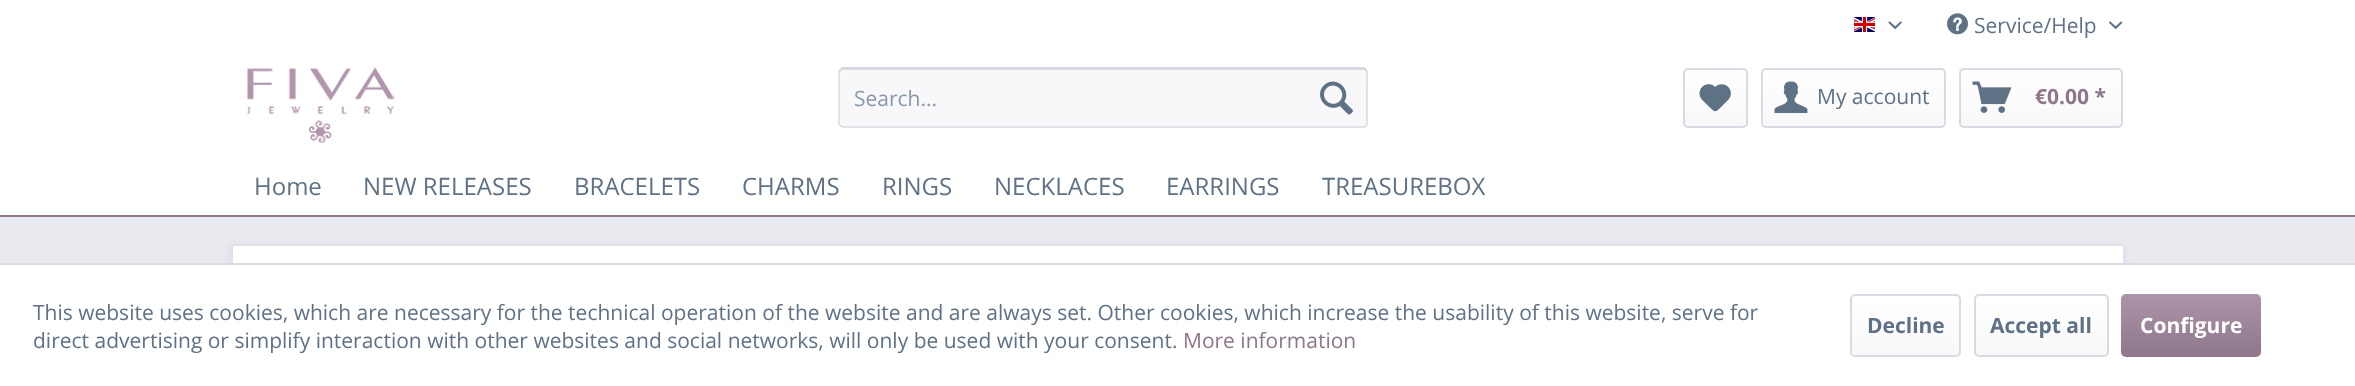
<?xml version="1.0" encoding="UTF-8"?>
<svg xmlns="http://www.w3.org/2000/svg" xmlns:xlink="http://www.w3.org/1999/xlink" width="2355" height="386">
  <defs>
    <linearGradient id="g1" gradientUnits="userSpaceOnUse" x1="1715" y1="69" x2="1715" y2="126"><stop offset="0" stop-color="#ffffff" /><stop offset="1" stop-color="#f8f8fa" /></linearGradient>
    <linearGradient id="g2" gradientUnits="userSpaceOnUse" x1="1853" y1="69" x2="1853" y2="126"><stop offset="0" stop-color="#ffffff" /><stop offset="1" stop-color="#f8f8fa" /></linearGradient>
    <linearGradient id="g3" gradientUnits="userSpaceOnUse" x1="2041" y1="69" x2="2041" y2="126"><stop offset="0" stop-color="#ffffff" /><stop offset="1" stop-color="#f8f8fa" /></linearGradient>
    <linearGradient id="g4" gradientUnits="userSpaceOnUse" x1="1905" y1="296" x2="1905" y2="356"><stop offset="0" stop-color="#ffffff" /><stop offset="1" stop-color="#f8f8fa" /></linearGradient>
    <linearGradient id="g5" gradientUnits="userSpaceOnUse" x1="2042" y1="296" x2="2042" y2="356"><stop offset="0" stop-color="#ffffff" /><stop offset="1" stop-color="#f8f8fa" /></linearGradient>
    <linearGradient id="g6" gradientUnits="userSpaceOnUse" x1="2191" y1="294" x2="2191" y2="357"><stop offset="0" stop-color="#ae94aa" /><stop offset="1" stop-color="#8e778a" /></linearGradient>
  </defs>
  <rect width="100%" height="100%" fill="#e9e9f0" />
  <rect width="2355" height="215" fill="#ffffff" />
  <image x="1854" y="17" width="21" height="15" xlink:href="image1.png" />
  <image x="1888" y="21" width="14" height="8" xlink:href="image2.png" />
  <image x="1947" y="13" width="21" height="22" xlink:href="image3.png" />
  <image x="2109" y="21" width="14" height="8" xlink:href="image4.png" />
  <image x="247" y="67" width="148" height="76" xlink:href="image5.png" />
  <rect x="839" y="68" width="529" height="60" rx="5" fill="#f8f8fa" />
  <path d="M 843 70 h 521 c 4 0 2 18 2 21 v 34 c 1 0 1 -1 1 -2 v -51 c 0 -2 -1 -3 -3 -3 h -521 c -2 0 -3 1 -3 3 v 2 c 0 -2 1 -4 3 -4 z" fill="#dadae5" />
  <path d="M 840.5 69.5 c 0.5 -1 1.5 -1.5 2.5 -1.5 h 520.5 c 1 0 2 0.5 2.5 1.5" fill="none" stroke="#cbcbdb" stroke-width="1.5" />
  <path d="M 1366 69.5 c 1 0.5 1 1.5 1 2.5 v 51 c 0 1 0 2 -1 2.5 c -0.5 1 -1.5 1.5 -2.5 1.5 h -520.5 c -1 0 -2 -0.5 -2.5 -1.5 c -1 -0.5 -1.5 -1.5 -1.5 -2.5 v -51 c 0 -1 0.5 -2 1.5 -2.5" fill="none" stroke="#dadae5" stroke-width="1.5" />
  <image x="1320" y="81" width="33" height="34" xlink:href="image6.png" />
  <rect x="1685" y="69" width="61" height="57" rx="3" fill="url(#g1)" />
  <rect x="1684" y="69" width="63" height="58" rx="4" fill="none" stroke="#dadae5" stroke-width="2" />
  <image x="1699" y="84" width="32" height="28" xlink:href="image7.png" />
  <rect x="1763" y="69" width="181" height="57" rx="3" fill="url(#g2)" />
  <rect x="1762" y="69" width="183" height="58" rx="4" fill="none" stroke="#dadae5" stroke-width="2" />
  <image x="1774" y="81" width="34" height="32" xlink:href="image8.png" />
  <rect x="1961" y="69" width="160" height="57" rx="3" fill="url(#g3)" />
  <rect x="1960" y="69" width="162" height="58" rx="4" fill="none" stroke="#dadae5" stroke-width="2" />
  <image x="1972" y="81" width="40" height="32" xlink:href="image9.png" />
  <rect y="215" width="2355" height="2" fill="#8e778a" />
  <rect x="231" y="245" width="1893" height="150" fill="#dadae5" filter="blur(3px)" />
  <rect x="233" y="246" width="1890" height="17" fill="#ffffff" />
  <rect y="265" width="2355" height="121" fill="#ffffff" />
  <rect y="263" width="2355" height="2" fill="#dadae5" />
  <rect x="1851" y="296" width="108" height="60" rx="3" fill="url(#g4)" />
  <rect x="1851" y="295" width="109" height="61" rx="4" fill="none" stroke="#dadae5" stroke-width="2" />
  <rect x="1976" y="296" width="132" height="60" rx="3" fill="url(#g5)" />
  <rect x="1975" y="295" width="133" height="61" rx="4" fill="none" stroke="#dadae5" stroke-width="2" />
  <rect x="2121" y="294" width="140" height="63" rx="5" fill="url(#g6)" />
  <text x="1974" y="33" style="font-family: Open Sans; font-size: 21px; fill: #5f7285">Service/Help</text>
  <text x="854" y="106" style="font-family: Open Sans; font-size: 21px; fill: #8798a9">Search...</text>
  <text x="1817" y="104" style="font-family: Open Sans; font-size: 21px; fill: #5f7285">My account</text>
  <text x="2035" y="104" style="font-family: Open Sans; font-size: 21px; font-weight: bold; fill: #8e778a">€0.00 *</text>
  <text x="254" y="195" style="font-family: Open Sans; font-size: 24px; fill: #5f7285">Home</text>
  <text x="363" y="195" style="font-family: Open Sans; font-size: 24px; fill: #5f7285">NEW RELEASES</text>
  <text x="574" y="195" style="font-family: Open Sans; font-size: 24px; fill: #5f7285">BRACELETS</text>
  <text x="742" y="195" style="font-family: Open Sans; font-size: 24px; fill: #5f7285">CHARMS</text>
  <text x="882" y="195" style="font-family: Open Sans; font-size: 24px; fill: #5f7285">RINGS</text>
  <text x="994" y="195" style="font-family: Open Sans; font-size: 24px; fill: #5f7285">NECKLACES</text>
  <text x="1166" y="195" style="font-family: Open Sans; font-size: 24px; fill: #5f7285">EARRINGS</text>
  <text x="1322" y="195" style="font-family: Open Sans; font-size: 24px; fill: #5f7285">TREASUREBOX</text>
  <text x="33" y="320" style="font-family: Open Sans; font-size: 21px; fill: #5f7285">This website uses cookies, which are necessary for the technical operation of the website and are always set. Other cookies, which increase the usability of this website, serve for</text>
  <text x="33" y="348" style="font-family: Open Sans; font-size: 21px; fill: #5f7285">direct advertising or simplify interaction with other websites and social networks, will only be used with your consent.</text>
  <text x="1183" y="348" style="font-family: Open Sans; font-size: 21px; fill: #8e778a">More information</text>
  <text x="1867" y="333" style="font-family: Open Sans; font-size: 21px; font-weight: bold; fill: #5f7285">Decline</text>
  <text x="1990" y="333" style="font-family: Open Sans; font-size: 21px; font-weight: bold; fill: #5f7285">Accept all</text>
  <text x="2140" y="333" style="font-family: Open Sans; font-size: 21px; font-weight: bold; fill: #ffffff">Configure</text>
</svg>
